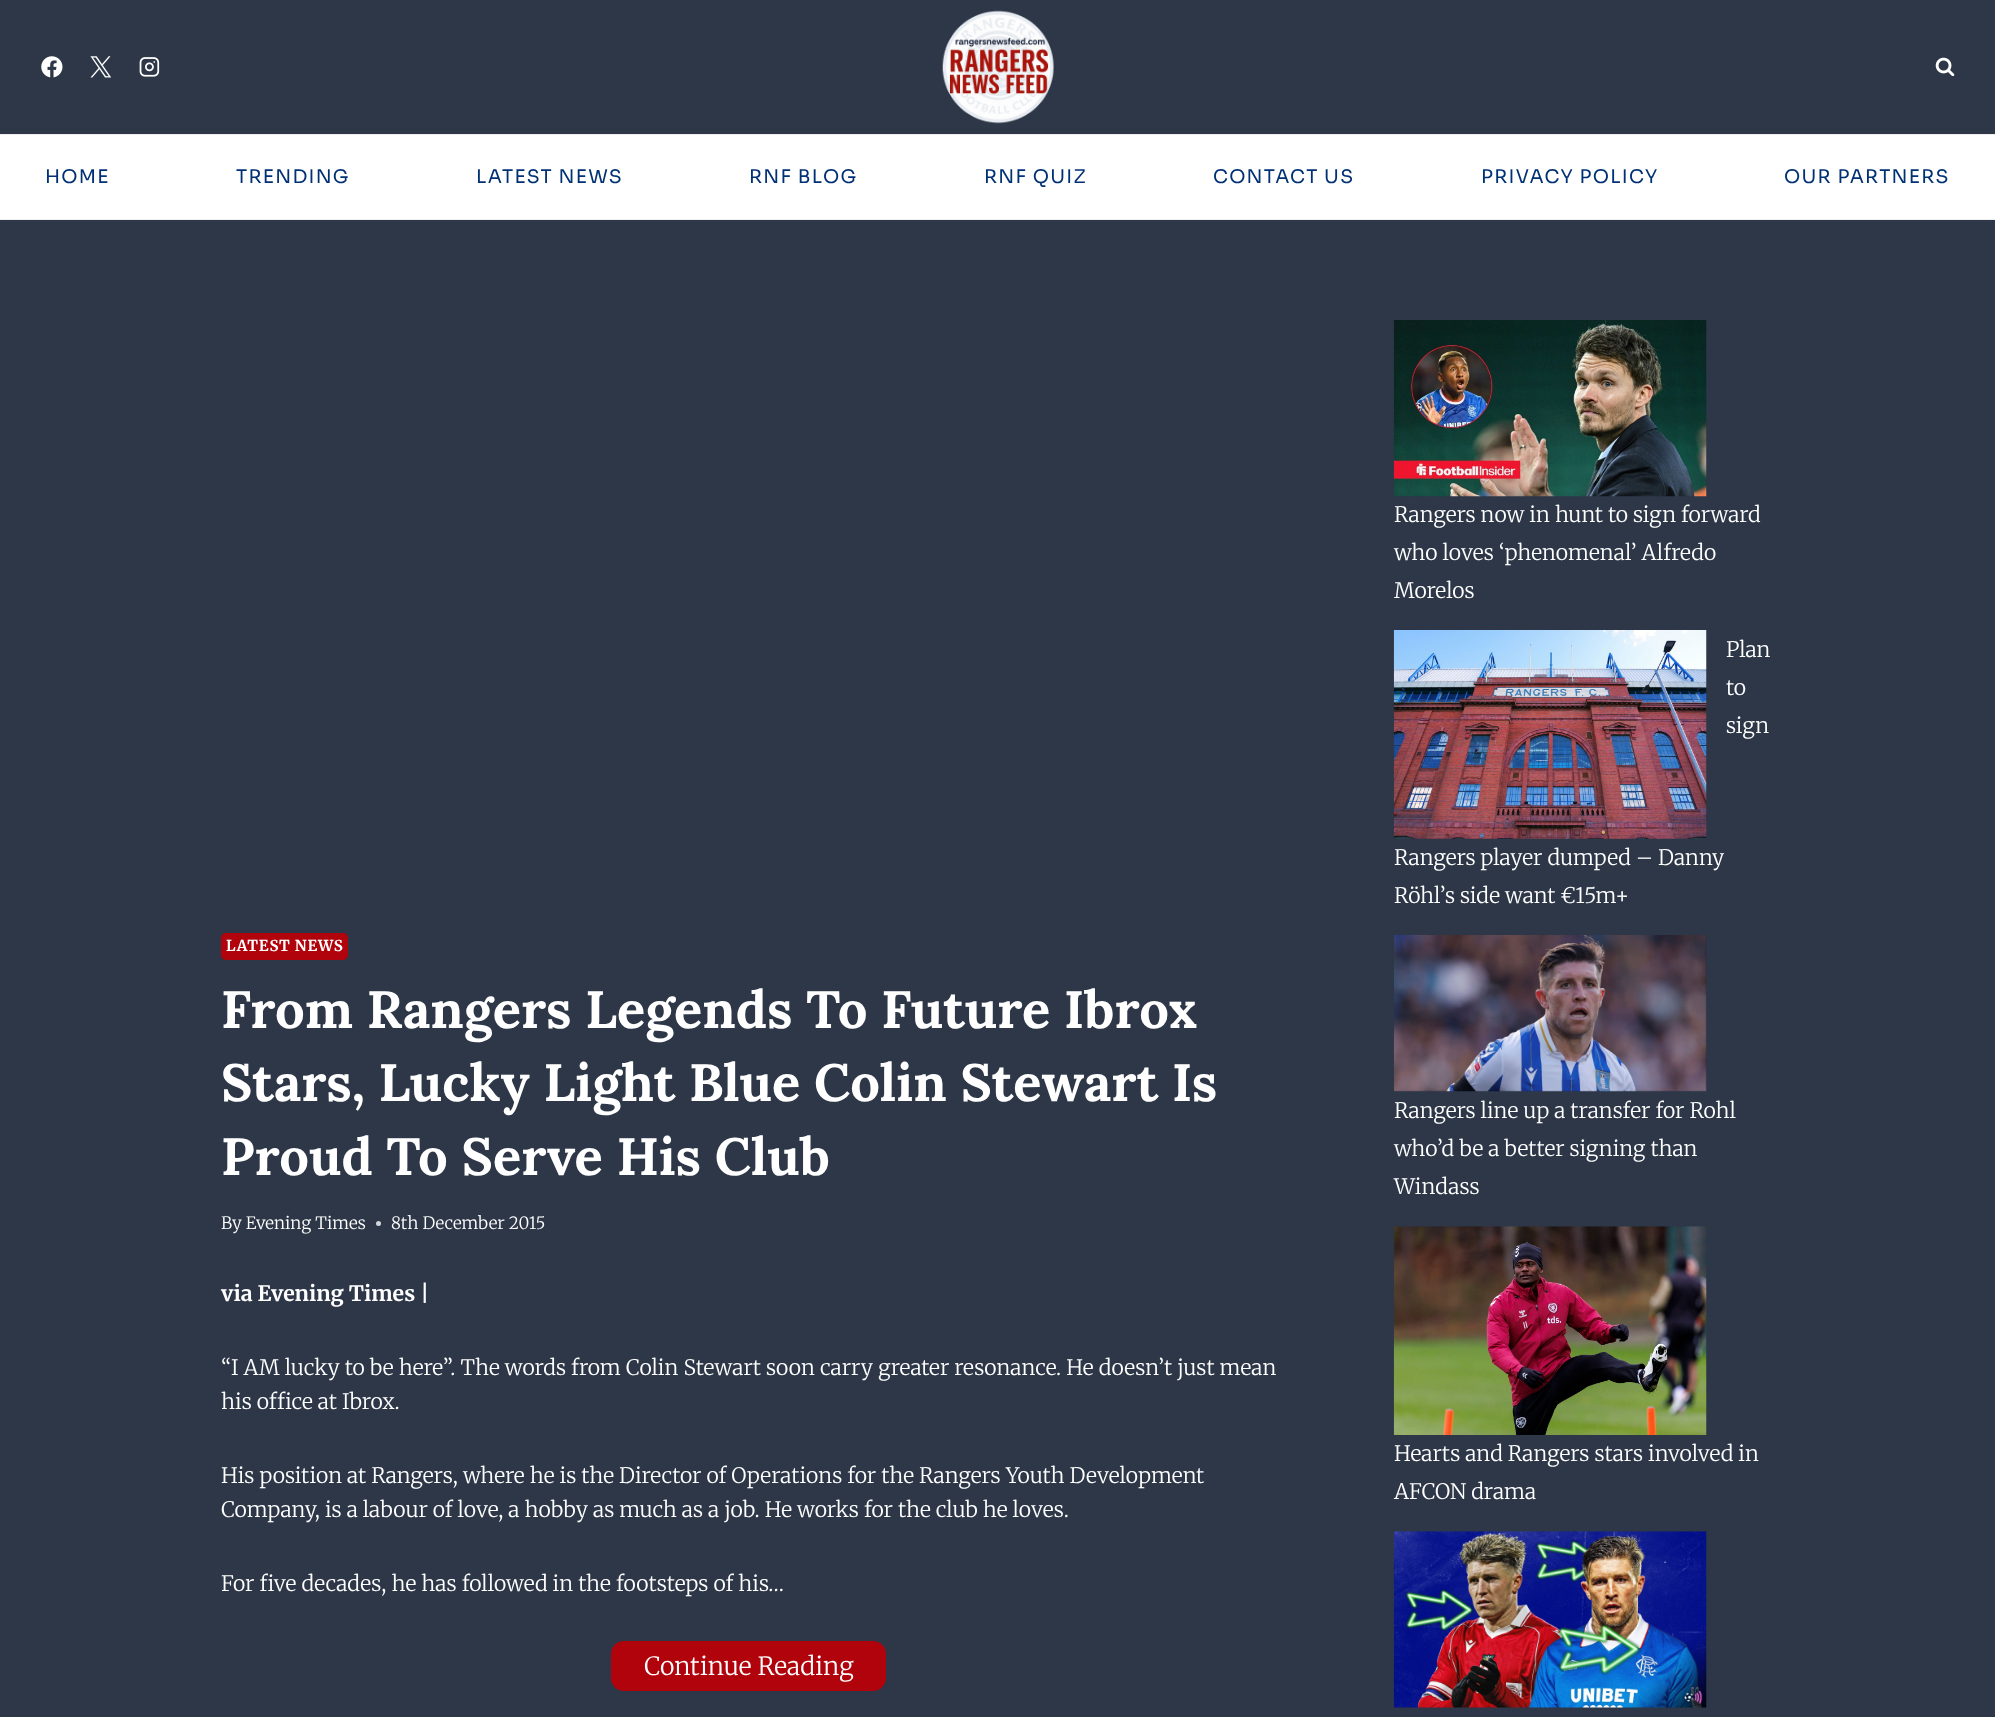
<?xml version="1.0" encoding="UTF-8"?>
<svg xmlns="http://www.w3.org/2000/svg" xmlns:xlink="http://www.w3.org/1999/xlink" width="1995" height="1717">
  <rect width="100%" height="100%" fill="#2d3748" />
  <rect y="135" width="1995" height="84" fill="#ffffff" />
  <image x="41" y="56" width="22" height="22" xlink:href="image1.png" />
  <image x="90" y="56" width="21" height="22" xlink:href="image2.png" />
  <image x="139" y="57" width="21" height="20" xlink:href="image3.png" />
  <image x="942" y="10" width="112" height="114" xlink:href="image4.png" />
  <image x="1935" y="57" width="20" height="19" xlink:href="image5.png" />
  <rect y="134" width="1995" height="1" fill="#eeeeee" />
  <rect y="219" width="1995" height="1" fill="#eeeeee" />
  <rect x="221" y="933" width="127" height="27" rx="5" fill="#b0030b" />
  <circle cx="378.5" cy="1223.5" r="2.5" fill="#d5d7da" />
  <rect x="611" y="1641" width="275" height="50" rx="13" fill="#b0030b" />
  <image x="1393" y="320" width="314" height="177" xlink:href="image6.png" />
  <image x="1393" y="630" width="314" height="209" xlink:href="image7.png" />
  <image x="1393" y="935" width="314" height="157" xlink:href="image8.png" />
  <image x="1393" y="1226" width="314" height="209" xlink:href="image9.png" />
  <image x="1393" y="1531" width="314" height="177" xlink:href="image10.png" />
  <text x="45" y="183" style="font-family: Sora; font-size: 18.75px; letter-spacing: 1.25px; fill: #003174">HOME</text>
  <text x="236" y="183" style="font-family: Sora; font-size: 18.75px; letter-spacing: 1.25px; fill: #003174">TRENDING</text>
  <text x="476" y="183" style="font-family: Sora; font-size: 18.75px; letter-spacing: 1.25px; fill: #003174">LATEST NEWS</text>
  <text x="749" y="183" style="font-family: Sora; font-size: 18.75px; letter-spacing: 1.25px; fill: #003174">RNF BLOG</text>
  <text x="984" y="183" style="font-family: Sora; font-size: 18.75px; letter-spacing: 1.25px; fill: #003174">RNF QUIZ</text>
  <text x="1213" y="183" style="font-family: Sora; font-size: 18.75px; letter-spacing: 1.25px; fill: #003174">CONTACT US</text>
  <text x="1481" y="183" style="font-family: Sora; font-size: 18.75px; letter-spacing: 1.25px; fill: #003174">PRIVACY POLICY</text>
  <text x="1784" y="183" style="font-family: Sora; font-size: 18.75px; letter-spacing: 1.25px; fill: #003174">OUR PARTNERS</text>
  <text x="226" y="951" style="font-family: Merriweather; font-size: 15px; font-weight: bold; letter-spacing: 0.75px; fill: #ffffff">LATEST NEWS</text>
  <text x="221" y="1028" style="font-family: Lora; font-size: 52.5px; font-weight: bold; fill: #ffffff">From Rangers Legends To Future Ibrox</text>
  <text x="221" y="1101" style="font-family: Lora; font-size: 52.5px; font-weight: bold; fill: #ffffff">Stars, Lucky Light Blue Colin Stewart Is</text>
  <text x="221" y="1175" style="font-family: Lora; font-size: 52.5px; font-weight: bold; fill: #ffffff">Proud To Serve His Club</text>
  <text x="221" y="1229" style="font-family: Merriweather; font-size: 17px; font-weight: 300; fill: #ffffff">By Evening Times</text>
  <text x="391" y="1229" style="font-family: Merriweather; font-size: 17px; font-weight: 300; fill: #ffffff">8th December 2015</text>
  <text x="221" y="1301" style="font-family: Merriweather; font-size: 21.25px; font-weight: bold; fill: #ffffff">via Evening Times |</text>
  <text x="221" y="1375" style="font-family: Merriweather; font-size: 21.25px; font-weight: 300; fill: #ffffff">“I AM lucky to be here”. The words from Colin Stewart soon carry greater resonance. He doesn’t just mean</text>
  <text x="221" y="1409" style="font-family: Merriweather; font-size: 21.25px; font-weight: 300; fill: #ffffff">his office at Ibrox.</text>
  <text x="221" y="1483" style="font-family: Merriweather; font-size: 21.25px; font-weight: 300; fill: #ffffff">His position at Rangers, where he is the Director of Operations for the Rangers Youth Development</text>
  <text x="221" y="1517" style="font-family: Merriweather; font-size: 21.25px; font-weight: 300; fill: #ffffff">Company, is a labour of love, a hobby as much as a job. He works for the club he loves.</text>
  <text x="221" y="1591" style="font-family: Merriweather; font-size: 21.25px; font-weight: 300; fill: #ffffff">For five decades, he has followed in the footsteps of his…</text>
  <text x="644" y="1675" style="font-family: Merriweather; font-size: 25px; font-weight: 300; fill: #ffffff">Continue Reading</text>
  <text x="1394" y="522" style="font-family: Merriweather; font-size: 21.25px; font-weight: 300; fill: #ffffff">Rangers now in hunt to sign forward</text>
  <text x="1394" y="560" style="font-family: Merriweather; font-size: 21.25px; font-weight: 300; fill: #ffffff">who loves ‘phenomenal’ Alfredo</text>
  <text x="1394" y="598" style="font-family: Merriweather; font-size: 21.25px; font-weight: 300; fill: #ffffff">Morelos</text>
  <text x="1726" y="657" style="font-family: Merriweather; font-size: 21.25px; font-weight: 300; fill: #ffffff">Plan</text>
  <text x="1726" y="695" style="font-family: Merriweather; font-size: 21.25px; font-weight: 300; fill: #ffffff">to</text>
  <text x="1726" y="733" style="font-family: Merriweather; font-size: 21.25px; font-weight: 300; fill: #ffffff">sign</text>
  <text x="1394" y="865" style="font-family: Merriweather; font-size: 21.25px; font-weight: 300; fill: #ffffff">Rangers player dumped – Danny</text>
  <text x="1394" y="903" style="font-family: Merriweather; font-size: 21.25px; font-weight: 300; fill: #ffffff">Röhl’s side want €15m+</text>
  <text x="1394" y="1118" style="font-family: Merriweather; font-size: 21.25px; font-weight: 300; fill: #ffffff">Rangers line up a transfer for Rohl</text>
  <text x="1394" y="1156" style="font-family: Merriweather; font-size: 21.25px; font-weight: 300; fill: #ffffff">who’d be a better signing than</text>
  <text x="1394" y="1194" style="font-family: Merriweather; font-size: 21.25px; font-weight: 300; fill: #ffffff">Windass</text>
  <text x="1394" y="1461" style="font-family: Merriweather; font-size: 21.25px; font-weight: 300; fill: #ffffff">Hearts and Rangers stars involved in</text>
  <text x="1394" y="1499" style="font-family: Merriweather; font-size: 21.25px; font-weight: 300; fill: #ffffff">AFCON drama</text>
</svg>
